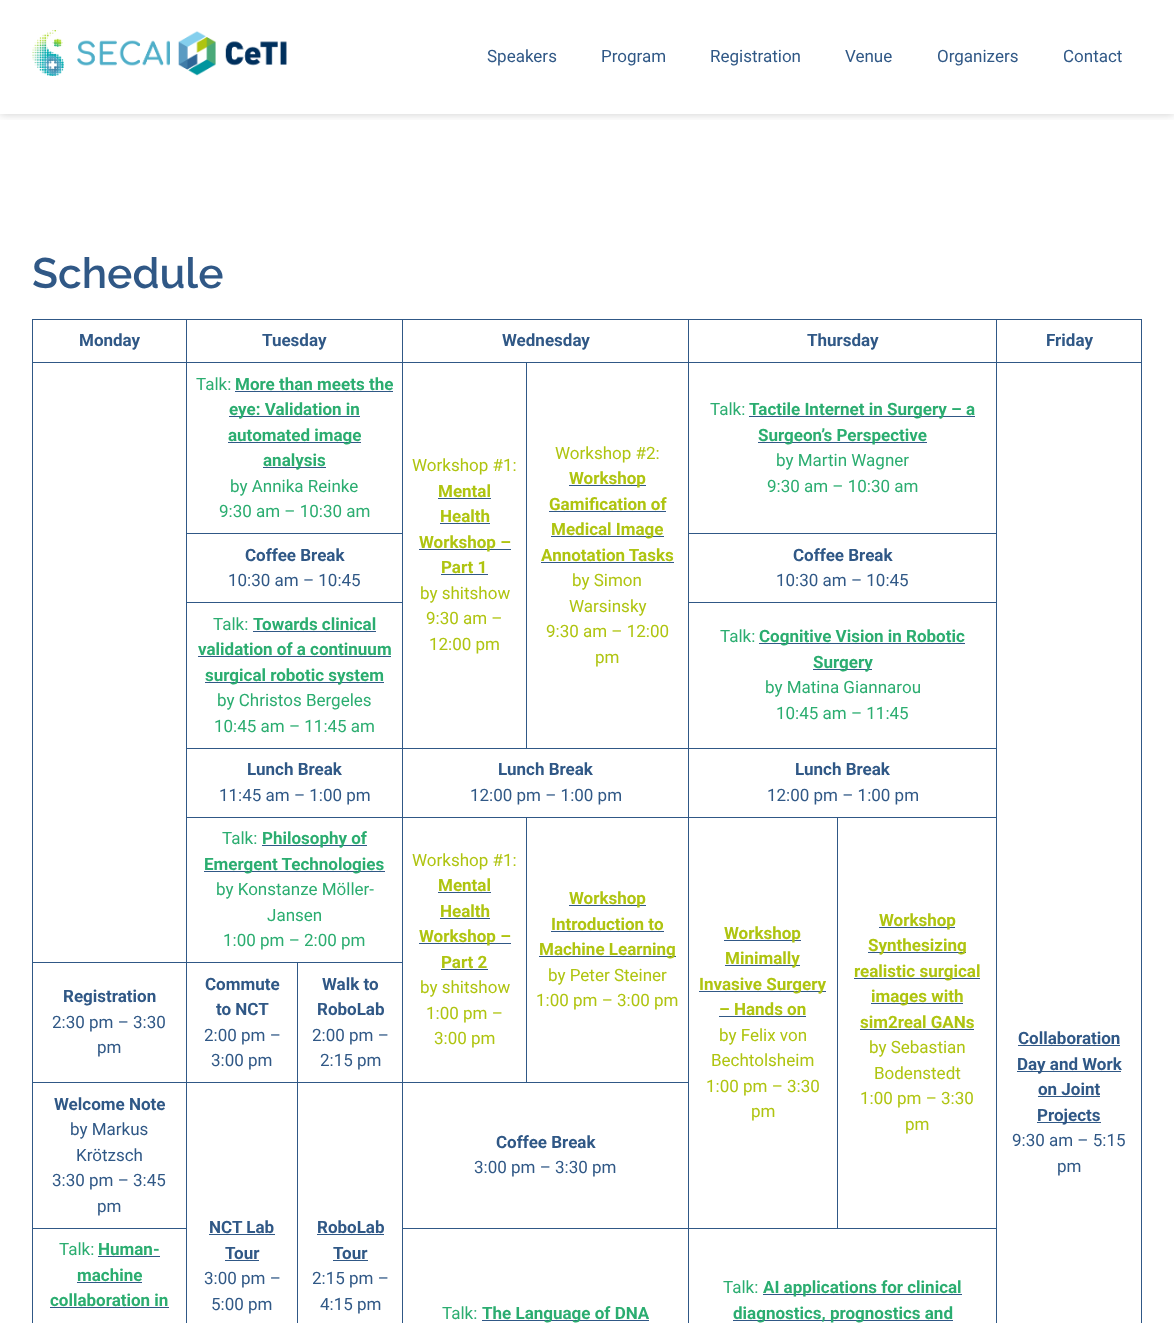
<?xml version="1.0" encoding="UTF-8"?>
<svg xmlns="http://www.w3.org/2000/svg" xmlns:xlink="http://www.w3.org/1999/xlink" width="1174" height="1323">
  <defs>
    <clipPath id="clip1"><rect x="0" y="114" width="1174" height="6" /></clipPath>
  </defs>
  <rect width="100%" height="100%" fill="#ffffff" />
  <g clip-path="url(#clip1)">
    <rect width="1174" height="114" fill="#000000" fill-opacity="0.2" filter="blur(5px)" />
  </g>
  <image x="32" y="30" width="255" height="46" xlink:href="image1.png" />
  <rect x="32" y="319" width="1110" height="1" fill="#305886" />
  <rect x="1141" y="319" width="1" height="1004" fill="#305886" />
  <rect x="32" y="319" width="1" height="1004" fill="#305886" />
  <rect x="996" y="362" width="146" height="1" fill="#305886" />
  <rect x="688" y="533" width="309" height="1" fill="#305886" />
  <rect x="688" y="602" width="309" height="1" fill="#305886" />
  <rect x="688" y="748" width="309" height="1" fill="#305886" />
  <rect x="837" y="817" width="160" height="1" fill="#305886" />
  <rect x="688" y="1228" width="309" height="1" fill="#305886" />
  <rect x="996" y="362" width="1" height="961" fill="#305886" />
  <rect x="688" y="362" width="309" height="1" fill="#305886" />
  <rect x="837" y="817" width="1" height="412" fill="#305886" />
  <rect x="688" y="817" width="150" height="1" fill="#305886" />
  <rect x="402" y="1082" width="287" height="1" fill="#305886" />
  <rect x="688" y="1228" width="1" height="95" fill="#305886" />
  <rect x="402" y="1228" width="287" height="1" fill="#305886" />
  <rect x="688" y="817" width="1" height="412" fill="#305886" />
  <rect x="526" y="817" width="163" height="1" fill="#305886" />
  <rect x="688" y="748" width="1" height="70" fill="#305886" />
  <rect x="402" y="748" width="287" height="1" fill="#305886" />
  <rect x="688" y="602" width="1" height="147" fill="#305886" />
  <rect x="688" y="533" width="1" height="70" fill="#305886" />
  <rect x="688" y="362" width="1" height="172" fill="#305886" />
  <rect x="526" y="362" width="163" height="1" fill="#305886" />
  <rect x="526" y="362" width="1" height="387" fill="#305886" />
  <rect x="402" y="362" width="125" height="1" fill="#305886" />
  <rect x="186" y="533" width="217" height="1" fill="#305886" />
  <rect x="186" y="602" width="217" height="1" fill="#305886" />
  <rect x="526" y="817" width="1" height="266" fill="#305886" />
  <rect x="402" y="817" width="125" height="1" fill="#305886" />
  <rect x="297" y="962" width="106" height="1" fill="#305886" />
  <rect x="402" y="1228" width="1" height="95" fill="#305886" />
  <rect x="402" y="1082" width="1" height="147" fill="#305886" />
  <rect x="297" y="1082" width="106" height="1" fill="#305886" />
  <rect x="402" y="817" width="1" height="266" fill="#305886" />
  <rect x="186" y="817" width="217" height="1" fill="#305886" />
  <rect x="402" y="748" width="1" height="70" fill="#305886" />
  <rect x="186" y="748" width="217" height="1" fill="#305886" />
  <rect x="402" y="362" width="1" height="387" fill="#305886" />
  <rect x="186" y="362" width="217" height="1" fill="#305886" />
  <rect x="297" y="1082" width="1" height="241" fill="#305886" />
  <rect x="186" y="1082" width="112" height="1" fill="#305886" />
  <rect x="297" y="962" width="1" height="121" fill="#305886" />
  <rect x="186" y="962" width="112" height="1" fill="#305886" />
  <rect x="32" y="1228" width="155" height="1" fill="#305886" />
  <rect x="186" y="1082" width="1" height="241" fill="#305886" />
  <rect x="32" y="1082" width="155" height="1" fill="#305886" />
  <rect x="186" y="962" width="1" height="121" fill="#305886" />
  <rect x="32" y="962" width="155" height="1" fill="#305886" />
  <rect x="186" y="817" width="1" height="146" fill="#305886" />
  <rect x="186" y="748" width="1" height="70" fill="#305886" />
  <rect x="186" y="602" width="1" height="147" fill="#305886" />
  <rect x="186" y="533" width="1" height="70" fill="#305886" />
  <rect x="186" y="362" width="1" height="172" fill="#305886" />
  <rect x="32" y="362" width="155" height="1" fill="#305886" />
  <rect x="186" y="319" width="1" height="44" fill="#305886" />
  <rect x="402" y="319" width="1" height="44" fill="#305886" />
  <rect x="688" y="319" width="1" height="44" fill="#305886" />
  <rect x="996" y="319" width="1" height="44" fill="#305886" />
  <rect x="235" y="391" width="158" height="1" fill="#305886" />
  <rect x="229" y="416" width="131" height="1" fill="#305886" />
  <rect x="228" y="442" width="133" height="1" fill="#305886" />
  <rect x="263" y="467" width="63" height="1" fill="#305886" />
  <rect x="438" y="498" width="53" height="1" fill="#305886" />
  <rect x="440" y="523" width="50" height="1" fill="#305886" />
  <rect x="419" y="549" width="92" height="1" fill="#305886" />
  <rect x="441" y="574" width="47" height="1" fill="#305886" />
  <rect x="569" y="485" width="77" height="1" fill="#305886" />
  <rect x="549" y="511" width="117" height="1" fill="#305886" />
  <rect x="551" y="536" width="113" height="1" fill="#305886" />
  <rect x="541" y="562" width="133" height="1" fill="#305886" />
  <rect x="749" y="416" width="226" height="1" fill="#305886" />
  <rect x="758" y="442" width="169" height="1" fill="#305886" />
  <rect x="1018" y="1045" width="102" height="1" fill="#305886" />
  <rect x="1017" y="1071" width="104" height="1" fill="#305886" />
  <rect x="1038" y="1096" width="62" height="1" fill="#305886" />
  <rect x="1037" y="1122" width="64" height="1" fill="#305886" />
  <rect x="253" y="631" width="123" height="1" fill="#305886" />
  <rect x="198" y="656" width="193" height="1" fill="#305886" />
  <rect x="205" y="682" width="179" height="1" fill="#305886" />
  <rect x="759" y="643" width="206" height="1" fill="#305886" />
  <rect x="813" y="669" width="59" height="1" fill="#305886" />
  <rect x="262" y="845" width="105" height="1" fill="#305886" />
  <rect x="204" y="871" width="181" height="1" fill="#305886" />
  <rect x="438" y="892" width="53" height="1" fill="#305886" />
  <rect x="440" y="918" width="50" height="1" fill="#305886" />
  <rect x="419" y="943" width="92" height="1" fill="#305886" />
  <rect x="441" y="969" width="47" height="1" fill="#305886" />
  <rect x="569" y="905" width="77" height="1" fill="#305886" />
  <rect x="551" y="931" width="113" height="1" fill="#305886" />
  <rect x="539" y="956" width="137" height="1" fill="#305886" />
  <rect x="724" y="940" width="77" height="1" fill="#305886" />
  <rect x="725" y="965" width="75" height="1" fill="#305886" />
  <rect x="699" y="991" width="127" height="1" fill="#305886" />
  <rect x="719" y="1016" width="87" height="1" fill="#305886" />
  <rect x="879" y="927" width="76" height="1" fill="#305886" />
  <rect x="868" y="952" width="98" height="1" fill="#305886" />
  <rect x="854" y="978" width="126" height="1" fill="#305886" />
  <rect x="871" y="1003" width="92" height="1" fill="#305886" />
  <rect x="860" y="1029" width="114" height="1" fill="#305886" />
  <rect x="209" y="1234" width="66" height="1" fill="#305886" />
  <rect x="225" y="1260" width="34" height="1" fill="#305886" />
  <rect x="317" y="1234" width="67" height="1" fill="#305886" />
  <rect x="333" y="1260" width="35" height="1" fill="#305886" />
  <rect x="98" y="1256" width="62" height="1" fill="#305886" />
  <rect x="77" y="1282" width="65" height="1" fill="#305886" />
  <rect x="50" y="1307" width="119" height="1" fill="#305886" />
  <rect x="482" y="1320" width="167" height="1" fill="#305886" />
  <rect x="763" y="1294" width="199" height="1" fill="#305886" />
  <rect x="733" y="1320" width="220" height="1" fill="#305886" />
  <text x="487" y="62" style="font-family: Roboto; font-size: 17px; fill: #305886">Speakers</text>
  <text x="601" y="62" style="font-family: Roboto; font-size: 17px; fill: #305886">Program</text>
  <text x="710" y="62" style="font-family: Roboto; font-size: 17px; fill: #305886">Registration</text>
  <text x="845" y="62" style="font-family: Roboto; font-size: 17px; fill: #305886">Venue</text>
  <text x="937" y="62" style="font-family: Roboto; font-size: 17px; fill: #305886">Organizers</text>
  <text x="1063" y="62" style="font-family: Roboto; font-size: 17px; fill: #305886">Contact</text>
  <text x="32" y="288" style="font-family: Raleway; font-size: 42.5px; font-weight: 600; fill: #305886">Schedule</text>
  <text x="79" y="346" style="font-family: Roboto; font-size: 17px; font-weight: bold; fill: #305886">Monday</text>
  <text x="262" y="346" style="font-family: Roboto; font-size: 17px; font-weight: bold; fill: #305886">Tuesday</text>
  <text x="502" y="346" style="font-family: Roboto; font-size: 17px; font-weight: bold; fill: #305886">Wednesday</text>
  <text x="807" y="346" style="font-family: Roboto; font-size: 17px; font-weight: bold; fill: #305886">Thursday</text>
  <text x="1046" y="346" style="font-family: Roboto; font-size: 17px; font-weight: bold; fill: #305886">Friday</text>
  <text x="196" y="390" style="font-family: Roboto; font-size: 17px; fill: #2bad70">Talk:</text>
  <text x="235" y="390" style="font-family: Roboto; font-size: 17px; font-weight: bold; fill: #2bad70">More than meets the</text>
  <text x="229" y="415" style="font-family: Roboto; font-size: 17px; font-weight: bold; fill: #2bad70">eye: Validation in</text>
  <text x="228" y="441" style="font-family: Roboto; font-size: 17px; font-weight: bold; fill: #2bad70">automated image</text>
  <text x="263" y="466" style="font-family: Roboto; font-size: 17px; font-weight: bold; fill: #2bad70">analysis</text>
  <text x="230" y="492" style="font-family: Roboto; font-size: 17px; fill: #2bad70">by Annika Reinke</text>
  <text x="219" y="517" style="font-family: Roboto; font-size: 17px; fill: #2bad70">9:30 am – 10:30 am</text>
  <text x="412" y="471" style="font-family: Roboto; font-size: 17px; fill: #afc410">Workshop #1:</text>
  <text x="438" y="497" style="font-family: Roboto; font-size: 17px; font-weight: bold; fill: #afc410">Mental</text>
  <text x="440" y="522" style="font-family: Roboto; font-size: 17px; font-weight: bold; fill: #afc410">Health</text>
  <text x="419" y="548" style="font-family: Roboto; font-size: 17px; font-weight: bold; fill: #afc410">Workshop –</text>
  <text x="441" y="573" style="font-family: Roboto; font-size: 17px; font-weight: bold; fill: #afc410">Part 1</text>
  <text x="420" y="599" style="font-family: Roboto; font-size: 17px; fill: #afc410">by shitshow</text>
  <text x="426" y="624" style="font-family: Roboto; font-size: 17px; fill: #afc410">9:30 am –</text>
  <text x="429" y="650" style="font-family: Roboto; font-size: 17px; fill: #afc410">12:00 pm</text>
  <text x="555" y="459" style="font-family: Roboto; font-size: 17px; fill: #afc410">Workshop #2:</text>
  <text x="569" y="484" style="font-family: Roboto; font-size: 17px; font-weight: bold; fill: #afc410">Workshop</text>
  <text x="549" y="510" style="font-family: Roboto; font-size: 17px; font-weight: bold; fill: #afc410">Gamification of</text>
  <text x="551" y="535" style="font-family: Roboto; font-size: 17px; font-weight: bold; fill: #afc410">Medical Image</text>
  <text x="541" y="561" style="font-family: Roboto; font-size: 17px; font-weight: bold; fill: #afc410">Annotation Tasks</text>
  <text x="572" y="586" style="font-family: Roboto; font-size: 17px; fill: #afc410">by Simon</text>
  <text x="569" y="612" style="font-family: Roboto; font-size: 17px; fill: #afc410">Warsinsky</text>
  <text x="546" y="637" style="font-family: Roboto; font-size: 17px; fill: #afc410">9:30 am – 12:00</text>
  <text x="595" y="663" style="font-family: Roboto; font-size: 17px; fill: #afc410">pm</text>
  <text x="710" y="415" style="font-family: Roboto; font-size: 17px; fill: #2bad70">Talk:</text>
  <text x="749" y="415" style="font-family: Roboto; font-size: 17px; font-weight: bold; fill: #2bad70">Tactile Internet in Surgery – a</text>
  <text x="758" y="441" style="font-family: Roboto; font-size: 17px; font-weight: bold; fill: #2bad70">Surgeon’s Perspective</text>
  <text x="776" y="466" style="font-family: Roboto; font-size: 17px; fill: #2bad70">by Martin Wagner</text>
  <text x="767" y="492" style="font-family: Roboto; font-size: 17px; fill: #2bad70">9:30 am – 10:30 am</text>
  <text x="1018" y="1044" style="font-family: Roboto; font-size: 17px; font-weight: bold; fill: #305886">Collaboration</text>
  <text x="1017" y="1070" style="font-family: Roboto; font-size: 17px; font-weight: bold; fill: #305886">Day and Work</text>
  <text x="1038" y="1095" style="font-family: Roboto; font-size: 17px; font-weight: bold; fill: #305886">on Joint</text>
  <text x="1037" y="1121" style="font-family: Roboto; font-size: 17px; font-weight: bold; fill: #305886">Projects</text>
  <text x="1012" y="1146" style="font-family: Roboto; font-size: 17px; fill: #305886">9:30 am – 5:15</text>
  <text x="1057" y="1172" style="font-family: Roboto; font-size: 17px; fill: #305886">pm</text>
  <text x="245" y="561" style="font-family: Roboto; font-size: 17px; font-weight: bold; fill: #305886">Coffee Break</text>
  <text x="228" y="586" style="font-family: Roboto; font-size: 17px; fill: #305886">10:30 am – 10:45</text>
  <text x="793" y="561" style="font-family: Roboto; font-size: 17px; font-weight: bold; fill: #305886">Coffee Break</text>
  <text x="776" y="586" style="font-family: Roboto; font-size: 17px; fill: #305886">10:30 am – 10:45</text>
  <text x="213" y="630" style="font-family: Roboto; font-size: 17px; fill: #2bad70">Talk:</text>
  <text x="253" y="630" style="font-family: Roboto; font-size: 17px; font-weight: bold; fill: #2bad70">Towards clinical</text>
  <text x="198" y="655" style="font-family: Roboto; font-size: 17px; font-weight: bold; fill: #2bad70">validation of a continuum</text>
  <text x="205" y="681" style="font-family: Roboto; font-size: 17px; font-weight: bold; fill: #2bad70">surgical robotic system</text>
  <text x="217" y="706" style="font-family: Roboto; font-size: 17px; fill: #2bad70">by Christos Bergeles</text>
  <text x="214" y="732" style="font-family: Roboto; font-size: 17px; fill: #2bad70">10:45 am – 11:45 am</text>
  <text x="720" y="642" style="font-family: Roboto; font-size: 17px; fill: #2bad70">Talk:</text>
  <text x="759" y="642" style="font-family: Roboto; font-size: 17px; font-weight: bold; fill: #2bad70">Cognitive Vision in Robotic</text>
  <text x="813" y="668" style="font-family: Roboto; font-size: 17px; font-weight: bold; fill: #2bad70">Surgery</text>
  <text x="765" y="693" style="font-family: Roboto; font-size: 17px; fill: #2bad70">by Matina Giannarou</text>
  <text x="776" y="719" style="font-family: Roboto; font-size: 17px; fill: #2bad70">10:45 am – 11:45</text>
  <text x="247" y="775" style="font-family: Roboto; font-size: 17px; font-weight: bold; fill: #305886">Lunch Break</text>
  <text x="219" y="801" style="font-family: Roboto; font-size: 17px; fill: #305886">11:45 am – 1:00 pm</text>
  <text x="498" y="775" style="font-family: Roboto; font-size: 17px; font-weight: bold; fill: #305886">Lunch Break</text>
  <text x="470" y="801" style="font-family: Roboto; font-size: 17px; fill: #305886">12:00 pm – 1:00 pm</text>
  <text x="795" y="775" style="font-family: Roboto; font-size: 17px; font-weight: bold; fill: #305886">Lunch Break</text>
  <text x="767" y="801" style="font-family: Roboto; font-size: 17px; fill: #305886">12:00 pm – 1:00 pm</text>
  <text x="222" y="844" style="font-family: Roboto; font-size: 17px; fill: #2bad70">Talk:</text>
  <text x="262" y="844" style="font-family: Roboto; font-size: 17px; font-weight: bold; fill: #2bad70">Philosophy of</text>
  <text x="204" y="870" style="font-family: Roboto; font-size: 17px; font-weight: bold; fill: #2bad70">Emergent Technologies</text>
  <text x="216" y="895" style="font-family: Roboto; font-size: 17px; fill: #2bad70">by Konstanze Möller-</text>
  <text x="267" y="921" style="font-family: Roboto; font-size: 17px; fill: #2bad70">Jansen</text>
  <text x="223" y="946" style="font-family: Roboto; font-size: 17px; fill: #2bad70">1:00 pm – 2:00 pm</text>
  <text x="412" y="866" style="font-family: Roboto; font-size: 17px; fill: #afc410">Workshop #1:</text>
  <text x="438" y="891" style="font-family: Roboto; font-size: 17px; font-weight: bold; fill: #afc410">Mental</text>
  <text x="440" y="917" style="font-family: Roboto; font-size: 17px; font-weight: bold; fill: #afc410">Health</text>
  <text x="419" y="942" style="font-family: Roboto; font-size: 17px; font-weight: bold; fill: #afc410">Workshop –</text>
  <text x="441" y="968" style="font-family: Roboto; font-size: 17px; font-weight: bold; fill: #afc410">Part 2</text>
  <text x="420" y="993" style="font-family: Roboto; font-size: 17px; fill: #afc410">by shitshow</text>
  <text x="426" y="1019" style="font-family: Roboto; font-size: 17px; fill: #afc410">1:00 pm –</text>
  <text x="434" y="1044" style="font-family: Roboto; font-size: 17px; fill: #afc410">3:00 pm</text>
  <text x="569" y="904" style="font-family: Roboto; font-size: 17px; font-weight: bold; fill: #afc410">Workshop</text>
  <text x="551" y="930" style="font-family: Roboto; font-size: 17px; font-weight: bold; fill: #afc410">Introduction to</text>
  <text x="539" y="955" style="font-family: Roboto; font-size: 17px; font-weight: bold; fill: #afc410">Machine Learning</text>
  <text x="548" y="981" style="font-family: Roboto; font-size: 17px; fill: #afc410">by Peter Steiner</text>
  <text x="536" y="1006" style="font-family: Roboto; font-size: 17px; fill: #afc410">1:00 pm – 3:00 pm</text>
  <text x="724" y="939" style="font-family: Roboto; font-size: 17px; font-weight: bold; fill: #afc410">Workshop</text>
  <text x="725" y="964" style="font-family: Roboto; font-size: 17px; font-weight: bold; fill: #afc410">Minimally</text>
  <text x="699" y="990" style="font-family: Roboto; font-size: 17px; font-weight: bold; fill: #afc410">Invasive Surgery</text>
  <text x="719" y="1015" style="font-family: Roboto; font-size: 17px; font-weight: bold; fill: #afc410">– Hands on</text>
  <text x="719" y="1041" style="font-family: Roboto; font-size: 17px; fill: #afc410">by Felix von</text>
  <text x="711" y="1066" style="font-family: Roboto; font-size: 17px; fill: #afc410">Bechtolsheim</text>
  <text x="706" y="1092" style="font-family: Roboto; font-size: 17px; fill: #afc410">1:00 pm – 3:30</text>
  <text x="751" y="1117" style="font-family: Roboto; font-size: 17px; fill: #afc410">pm</text>
  <text x="879" y="926" style="font-family: Roboto; font-size: 17px; font-weight: bold; fill: #afc410">Workshop</text>
  <text x="868" y="951" style="font-family: Roboto; font-size: 17px; font-weight: bold; fill: #afc410">Synthesizing</text>
  <text x="854" y="977" style="font-family: Roboto; font-size: 17px; font-weight: bold; fill: #afc410">realistic surgical</text>
  <text x="871" y="1002" style="font-family: Roboto; font-size: 17px; font-weight: bold; fill: #afc410">images with</text>
  <text x="860" y="1028" style="font-family: Roboto; font-size: 17px; font-weight: bold; fill: #afc410">sim2real GANs</text>
  <text x="869" y="1053" style="font-family: Roboto; font-size: 17px; fill: #afc410">by Sebastian</text>
  <text x="874" y="1079" style="font-family: Roboto; font-size: 17px; fill: #afc410">Bodenstedt</text>
  <text x="860" y="1104" style="font-family: Roboto; font-size: 17px; fill: #afc410">1:00 pm – 3:30</text>
  <text x="905" y="1130" style="font-family: Roboto; font-size: 17px; fill: #afc410">pm</text>
  <text x="63" y="1002" style="font-family: Roboto; font-size: 17px; font-weight: bold; fill: #305886">Registration</text>
  <text x="52" y="1028" style="font-family: Roboto; font-size: 17px; fill: #305886">2:30 pm – 3:30</text>
  <text x="97" y="1053" style="font-family: Roboto; font-size: 17px; fill: #305886">pm</text>
  <text x="205" y="990" style="font-family: Roboto; font-size: 17px; font-weight: bold; fill: #305886">Commute</text>
  <text x="216" y="1015" style="font-family: Roboto; font-size: 17px; font-weight: bold; fill: #305886">to NCT</text>
  <text x="204" y="1041" style="font-family: Roboto; font-size: 17px; fill: #305886">2:00 pm –</text>
  <text x="211" y="1066" style="font-family: Roboto; font-size: 17px; fill: #305886">3:00 pm</text>
  <text x="322" y="990" style="font-family: Roboto; font-size: 17px; font-weight: bold; fill: #305886">Walk to</text>
  <text x="317" y="1015" style="font-family: Roboto; font-size: 17px; font-weight: bold; fill: #305886">RoboLab</text>
  <text x="312" y="1041" style="font-family: Roboto; font-size: 17px; fill: #305886">2:00 pm –</text>
  <text x="320" y="1066" style="font-family: Roboto; font-size: 17px; fill: #305886">2:15 pm</text>
  <text x="54" y="1110" style="font-family: Roboto; font-size: 17px; font-weight: bold; fill: #305886">Welcome Note</text>
  <text x="70" y="1135" style="font-family: Roboto; font-size: 17px; fill: #305886">by Markus</text>
  <text x="76" y="1161" style="font-family: Roboto; font-size: 17px; fill: #305886">Krötzsch</text>
  <text x="52" y="1186" style="font-family: Roboto; font-size: 17px; fill: #305886">3:30 pm – 3:45</text>
  <text x="97" y="1212" style="font-family: Roboto; font-size: 17px; fill: #305886">pm</text>
  <text x="496" y="1148" style="font-family: Roboto; font-size: 17px; font-weight: bold; fill: #305886">Coffee Break</text>
  <text x="474" y="1173" style="font-family: Roboto; font-size: 17px; fill: #305886">3:00 pm – 3:30 pm</text>
  <text x="209" y="1233" style="font-family: Roboto; font-size: 17px; font-weight: bold; fill: #305886">NCT Lab</text>
  <text x="225" y="1259" style="font-family: Roboto; font-size: 17px; font-weight: bold; fill: #305886">Tour</text>
  <text x="204" y="1284" style="font-family: Roboto; font-size: 17px; fill: #305886">3:00 pm –</text>
  <text x="211" y="1310" style="font-family: Roboto; font-size: 17px; fill: #305886">5:00 pm</text>
  <text x="317" y="1233" style="font-family: Roboto; font-size: 17px; font-weight: bold; fill: #305886">RoboLab</text>
  <text x="333" y="1259" style="font-family: Roboto; font-size: 17px; font-weight: bold; fill: #305886">Tour</text>
  <text x="312" y="1284" style="font-family: Roboto; font-size: 17px; fill: #305886">2:15 pm –</text>
  <text x="320" y="1310" style="font-family: Roboto; font-size: 17px; fill: #305886">4:15 pm</text>
  <text x="59" y="1255" style="font-family: Roboto; font-size: 17px; fill: #2bad70">Talk:</text>
  <text x="98" y="1255" style="font-family: Roboto; font-size: 17px; font-weight: bold; fill: #2bad70">Human-</text>
  <text x="77" y="1281" style="font-family: Roboto; font-size: 17px; font-weight: bold; fill: #2bad70">machine</text>
  <text x="50" y="1306" style="font-family: Roboto; font-size: 17px; font-weight: bold; fill: #2bad70">collaboration in</text>
  <text x="442" y="1319" style="font-family: Roboto; font-size: 17px; fill: #2bad70">Talk:</text>
  <text x="482" y="1319" style="font-family: Roboto; font-size: 17px; font-weight: bold; fill: #2bad70">The Language of DNA</text>
  <text x="723" y="1293" style="font-family: Roboto; font-size: 17px; fill: #2bad70">Talk:</text>
  <text x="763" y="1293" style="font-family: Roboto; font-size: 17px; font-weight: bold; fill: #2bad70">AI applications for clinical</text>
  <text x="733" y="1319" style="font-family: Roboto; font-size: 17px; font-weight: bold; fill: #2bad70">diagnostics, prognostics and</text>
</svg>
